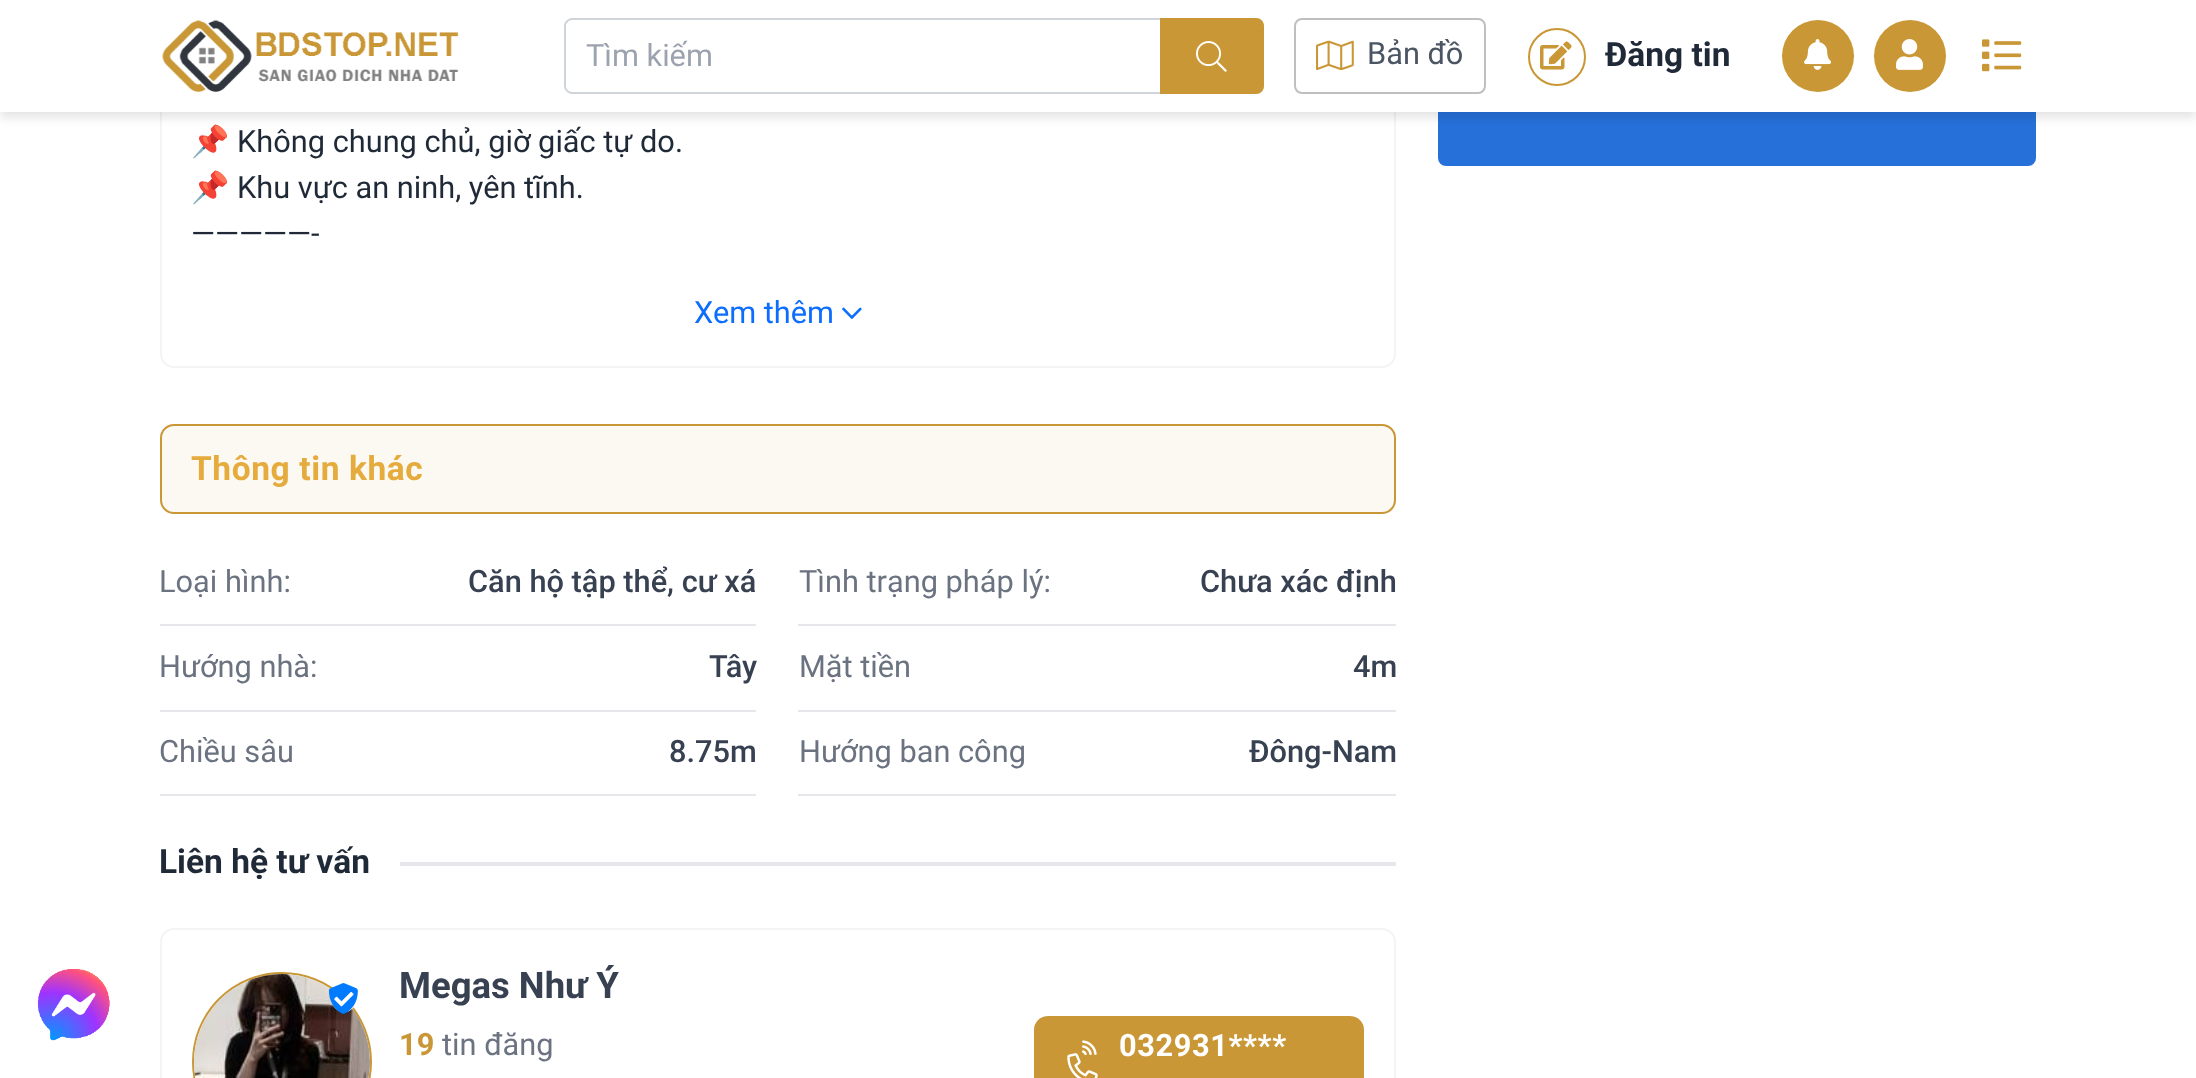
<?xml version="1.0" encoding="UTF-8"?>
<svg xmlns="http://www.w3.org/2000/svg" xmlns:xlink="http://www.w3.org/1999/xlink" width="2196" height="1078">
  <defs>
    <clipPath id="clip1"><rect x="192" width="1172" height="262" /></clipPath>
  </defs>
  <rect width="100%" height="100%" fill="#ffffff" />
  <rect x="1438" y="-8" width="598" height="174" rx="8" fill="#2670d9" />
  <rect x="161" y="-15" width="1234" height="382" rx="13" fill="none" stroke="#f3f4f6" stroke-width="2" />
  <rect y="6" width="2196" height="112" fill="#000000" fill-opacity="0.1" filter="blur(5px)" />
  <rect width="2196" height="112" fill="#ffffff" />
  <image x="162" y="20" width="297" height="72" xlink:href="image1.png" />
  <path d="M 572 18 h 588 v 76 h -588 c -4 0 -8 -4 -8 -8 v -60 c 0 -4 4 -8 8 -8 z m 0 2 h 588 v 72 h -588 c -3 0 -6 -3 -6 -6 v -60 c 0 -3 3 -6 6 -6 z" fill="#ced4da" fill-rule="evenodd" />
  <path d="M 1160 18 h 96 c 4.5 0 8 3.5 8 8 v 60 c 0 4.5 -3.5 8 -8 8 h -96 z" fill="#c99736" />
  <image x="1196" y="41" width="31" height="31" xlink:href="image2.png" />
  <rect x="1295" y="19" width="190" height="74" rx="7" fill="none" stroke="#bfbfbf" stroke-width="2" />
  <image x="1316" y="40" width="38" height="31" xlink:href="image3.png" />
  <circle cx="1557" cy="57" r="28" fill="none" stroke="#c99736" stroke-width="2" />
  <image x="1540" y="41" width="32" height="29" xlink:href="image4.png" />
  <circle cx="1818" cy="56" r="36" fill="#c99736" />
  <image x="1804" y="39" width="27" height="31" xlink:href="image5.png" />
  <circle cx="1910" cy="56" r="36" fill="#c99736" />
  <image x="1896" y="39" width="27" height="31" xlink:href="image6.png" />
  <image x="1982" y="39" width="40" height="33" xlink:href="image7.png" />
  <image x="37" y="969" width="73" height="72" xlink:href="image8.png" />
  <image x="842" y="307" width="20" height="12" xlink:href="image9.png" />
  <rect x="161" y="425" width="1234" height="88" rx="13" fill="#fcf9f3" stroke="#c99736" stroke-width="2" />
  <rect x="160" y="624" width="596" height="2" fill="#e5e7eb" />
  <rect x="798" y="624" width="598" height="2" fill="#e5e7eb" />
  <rect x="160" y="710" width="596" height="2" fill="#e5e7eb" />
  <rect x="798" y="710" width="598" height="2" fill="#e5e7eb" />
  <rect x="160" y="794" width="596" height="2" fill="#e5e7eb" />
  <rect x="798" y="794" width="598" height="2" fill="#e5e7eb" />
  <rect x="400" y="862" width="996" height="4" fill="#e5e7eb" />
  <rect x="161" y="929" width="1234" height="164" rx="13" fill="none" stroke="#f3f4f6" stroke-width="2" />
  <circle cx="282" cy="1062" r="89" fill="none" stroke="#c99736" stroke-width="2" />
  <image x="194" y="974" width="176" height="104" xlink:href="image10.png" />
  <circle cx="344" cy="1000" r="12" fill="#ffffff" />
  <image x="329" y="983" width="29" height="31" xlink:href="image11.png" />
  <rect x="1034" y="1016" width="330" height="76" rx="14" fill="#c99736" />
  <image x="1067" y="1040" width="31" height="38" xlink:href="image12.png" />
  <text x="586" y="66" style="font-family: Roboto; font-size: 30.75px; fill: #9ca3af">Tìm kiếm</text>
  <text x="1367" y="64" style="font-family: Roboto; font-size: 30.75px; fill: #4b5563">Bản đồ</text>
  <text x="1605" y="66" style="font-family: Roboto; font-size: 33.5px; font-weight: bold; fill: #1f2937">Đăng tin</text>
  <g clip-path="url(#clip1)">
    <text x="191" y="152" style="font-family: Noto Color Emoji; font-size: 30.75px; fill: #1f2937">📌</text>
  </g>
  <text x="237" y="152" style="font-family: Roboto; font-size: 30.75px; fill: #1f2937">Không chung chủ, giờ giấc tự do.</text>
  <g clip-path="url(#clip1)">
    <text x="191" y="198" style="font-family: Noto Color Emoji; font-size: 30.75px; fill: #1f2937">📌</text>
  </g>
  <text x="237" y="198" style="font-family: Roboto; font-size: 30.75px; fill: #1f2937">Khu vực an ninh, yên tĩnh.</text>
  <text x="191" y="244" style="font-family: Roboto; font-size: 30.75px; fill: #1f2937">—————-</text>
  <text x="694" y="323" style="font-family: Roboto; font-size: 30.75px; fill: #0d6efd">Xem thêm</text>
  <text x="191" y="480" style="font-family: Roboto; font-size: 33.5px; font-weight: bold; letter-spacing: 0.6px; fill: #e5ab3c">Thông tin khác</text>
  <text x="159" y="592" style="font-family: Roboto; font-size: 30.75px; fill: #6b7280">Loại hình:</text>
  <text x="468" y="592" style="font-family: Roboto; font-size: 30.75px; font-weight: 500; fill: #374151">Căn hộ tập thể, cư xá</text>
  <text x="799" y="592" style="font-family: Roboto; font-size: 30.75px; fill: #6b7280">Tình trạng pháp lý:</text>
  <text x="1200" y="592" style="font-family: Roboto; font-size: 30.75px; font-weight: 500; fill: #374151">Chưa xác định</text>
  <text x="159" y="677" style="font-family: Roboto; font-size: 30.75px; fill: #6b7280">Hướng nhà:</text>
  <text x="709" y="677" style="font-family: Roboto; font-size: 30.75px; font-weight: 500; fill: #374151">Tây</text>
  <text x="799" y="677" style="font-family: Roboto; font-size: 30.75px; fill: #6b7280">Mặt tiền</text>
  <text x="1353" y="677" style="font-family: Roboto; font-size: 30.75px; font-weight: 500; fill: #374151">4m</text>
  <text x="159" y="762" style="font-family: Roboto; font-size: 30.75px; fill: #6b7280">Chiều sâu</text>
  <text x="669" y="762" style="font-family: Roboto; font-size: 30.75px; font-weight: 500; fill: #374151">8.75m</text>
  <text x="799" y="762" style="font-family: Roboto; font-size: 30.75px; fill: #6b7280">Hướng ban công</text>
  <text x="1249" y="762" style="font-family: Roboto; font-size: 30.75px; font-weight: 500; fill: #374151">Đông-Nam</text>
  <text x="159" y="873" style="font-family: Roboto; font-size: 33.5px; font-weight: bold; fill: #1f2937">Liên hệ tư vấn</text>
  <text x="399" y="998" style="font-family: Roboto; font-size: 36.5px; font-weight: bold; fill: #374151">Megas Như Ý</text>
  <text x="399" y="1055" style="font-family: Roboto; font-size: 30.75px; font-weight: bold; fill: #c99736">19</text>
  <text x="442" y="1055" style="font-family: Roboto; font-size: 30.75px; fill: #6b7280">tin đăng</text>
  <text x="1119" y="1056" style="font-family: Roboto; font-size: 30.75px; font-weight: bold; letter-spacing: 0.6px; fill: #ffffff">032931****</text>
</svg>
